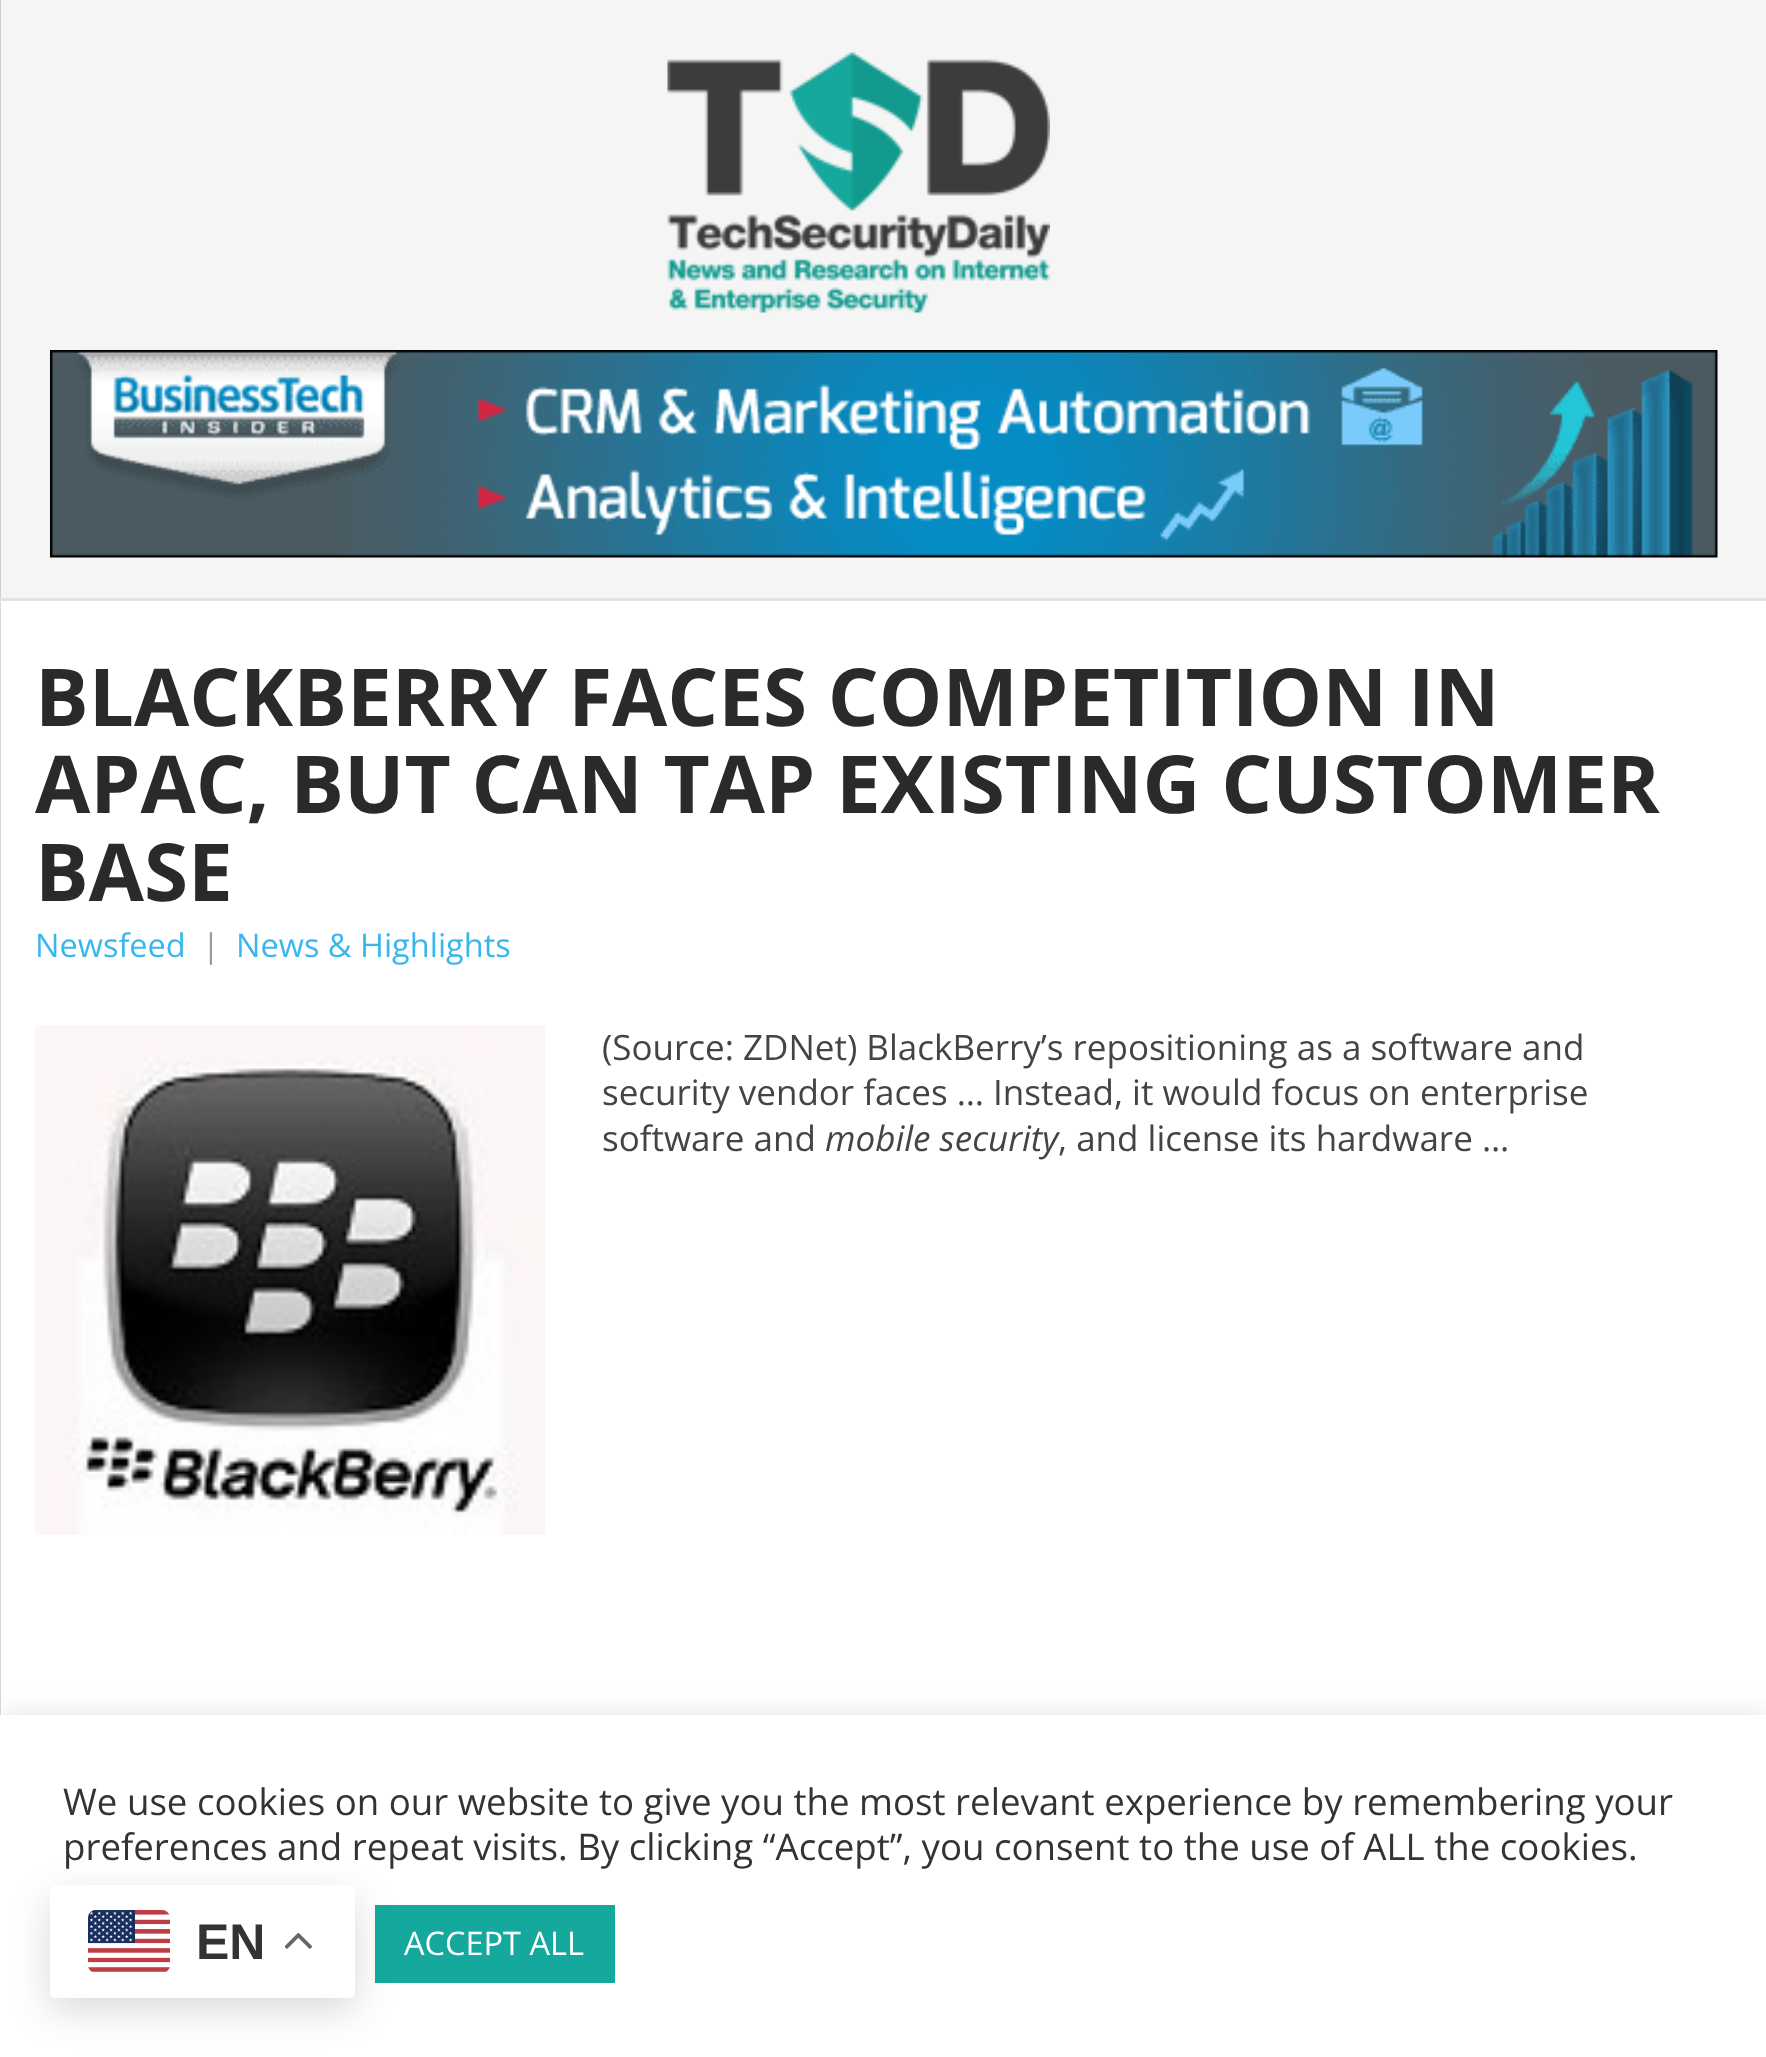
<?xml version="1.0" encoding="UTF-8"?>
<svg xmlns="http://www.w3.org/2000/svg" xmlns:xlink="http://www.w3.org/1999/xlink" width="1766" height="2057">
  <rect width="100%" height="100%" fill="#ffffff" />
  <rect y="601" width="1" height="1114" fill="#d9d9d9" />
  <rect x="1" width="1765" height="598" fill="#f5f5f5" />
  <rect width="1" height="600" fill="#d0d0d0" />
  <image x="667" y="52" width="383" height="261" xlink:href="image1.png" />
  <image x="50" y="350" width="1668" height="208" xlink:href="image2.png" />
  <rect y="598" width="1766" height="3" fill="#e2e2e2" />
  <image x="35" y="1025" width="510" height="510" xlink:href="image3.png" />
  <rect y="1713" width="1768" height="342" fill="#acabab" fill-opacity="0.3" filter="blur(12.5px)" />
  <rect y="1715" width="1766" height="342" fill="#ffffff" />
  <rect x="375" y="1905" width="240" height="78" fill="#15a99d" />
  <rect x="50" y="1898" width="305" height="112" rx="5" fill="#000000" fill-opacity="0.15" filter="blur(19px)" />
  <rect x="50" y="1885" width="305" height="113" rx="5" fill="#ffffff" />
  <image x="88" y="1910" width="82" height="62" xlink:href="image4.png" />
  <image x="285" y="1932" width="27" height="17" xlink:href="image5.png" />
  <text x="35" y="726" style="font-family: Open Sans; font-size: 80px; font-weight: bold; fill: #2a2a2a">BLACKBERRY FACES COMPETITION IN</text>
  <text x="35" y="813" style="font-family: Open Sans; font-size: 80px; font-weight: bold; fill: #2a2a2a">APAC, BUT CAN TAP EXISTING CUSTOMER</text>
  <text x="35" y="901" style="font-family: Open Sans; font-size: 80px; font-weight: bold; fill: #2a2a2a">BASE</text>
  <text x="35" y="957" style="font-family: Open Sans; font-size: 32.5px; fill: #38b7ee">Newsfeed</text>
  <text x="202" y="957" style="font-family: Open Sans; font-size: 32.5px; fill: #999999">|</text>
  <text x="236" y="957" style="font-family: Open Sans; font-size: 32.5px; fill: #38b7ee">News &amp; Highlights</text>
  <text x="602" y="1060" style="font-family: Open Sans; font-size: 35px; fill: #444444">(Source: ZDNet) BlackBerry’s repositioning as a software and</text>
  <text x="602" y="1105" style="font-family: Open Sans; font-size: 35px; fill: #444444">security vendor faces … Instead, it would focus on enterprise</text>
  <text x="602" y="1151" style="font-family: Open Sans; font-size: 35px; fill: #444444">software and</text>
  <text x="825" y="1151" style="font-family: Open Sans; font-size: 35px; font-style: italic; fill: #444444">mobile security</text>
  <text x="1058" y="1151" style="font-family: Open Sans; font-size: 35px; fill: #444444">, and license its hardware …</text>
  <text x="63" y="1815" style="font-family: Open Sans; font-size: 36.65px; fill: #333333">We use cookies on our website to give you the most relevant experience by remembering your</text>
  <text x="63" y="1860" style="font-family: Open Sans; font-size: 36.65px; fill: #333333">preferences and repeat visits. By clicking “Accept”, you consent to the use of ALL the cookies.</text>
  <text x="404" y="1955" style="font-family: Open Sans; font-size: 32.5px; fill: #ffffff">ACCEPT ALL</text>
  <text x="196" y="1959" style="font-family: Liberation Sans; font-size: 50px; font-weight: bold; fill: #333333">EN</text>
</svg>
